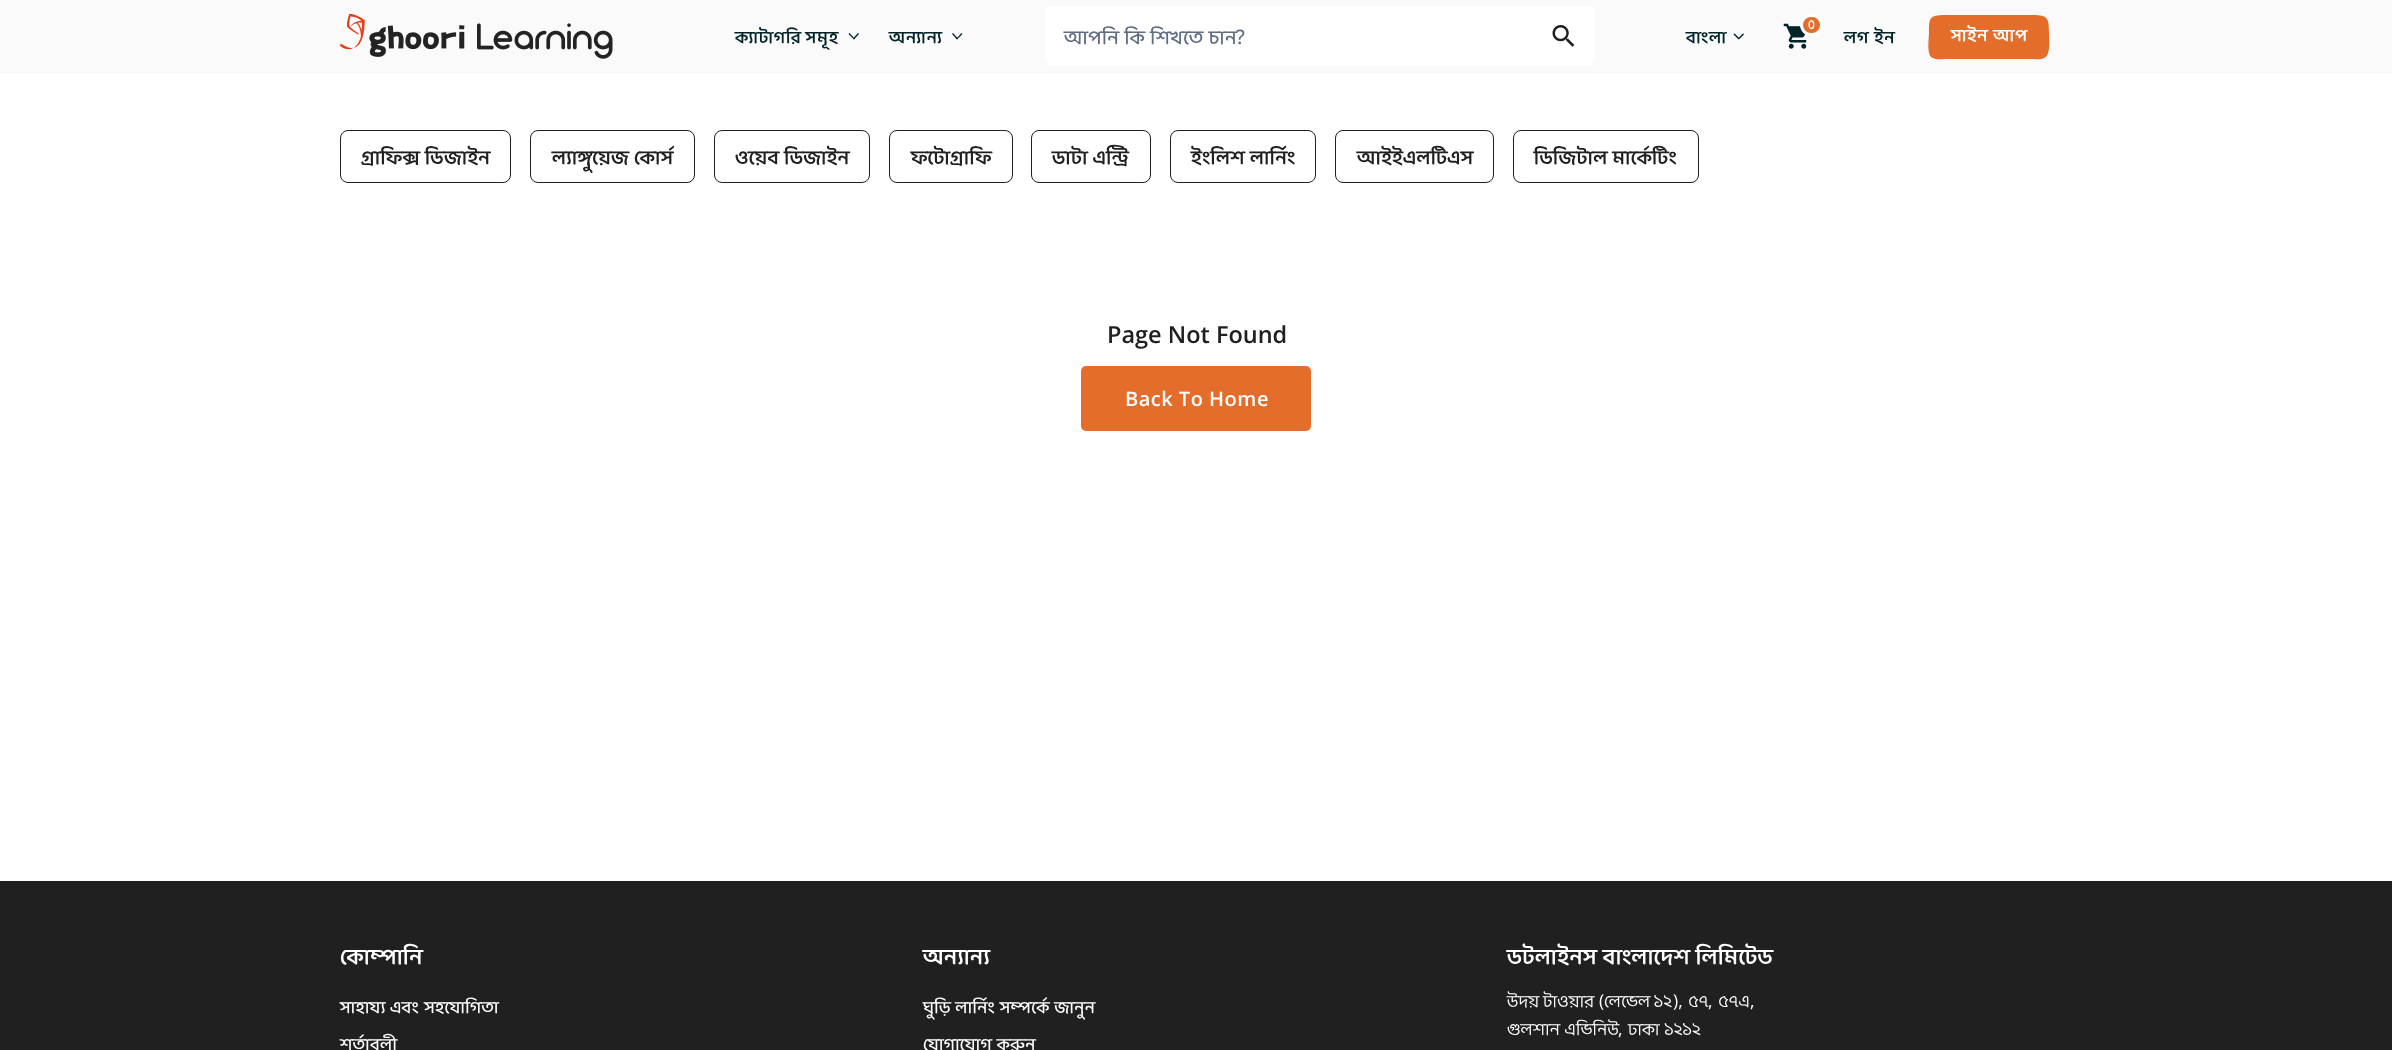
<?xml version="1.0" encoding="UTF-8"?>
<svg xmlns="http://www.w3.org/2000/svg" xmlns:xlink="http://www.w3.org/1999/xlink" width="2392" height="1050">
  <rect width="100%" height="100%" fill="#ffffff" />
  <rect width="2392" height="74" fill="#fafafa" />
  <image x="340" y="14" width="273" height="45" xlink:href="image1.png" />
  <path d="M 859 34 l -5 5.5 l -1 -1 l 5 -5.5 z" fill="#022429" />
  <path d="M 854.5 38.5 l -0.5 1 l -5.5 -5.5 l 1 -1 z" fill="#022429" />
  <path d="M 962.5 34 l -5.5 5.5 l -0.5 -1 l 5 -5.5 z" fill="#022429" />
  <path d="M 958 38.5 l -1 1 l -5 -5.5 l 1 -1 z" fill="#022429" />
  <rect x="1045" y="6" width="550" height="60" rx="8" fill="#ffffff" />
  <image x="1552" y="25" width="23" height="22" xlink:href="image2.png" />
  <image x="1733" y="33" width="11" height="7" xlink:href="image3.png" />
  <image x="1783" y="23" width="24" height="26" xlink:href="image4.png" />
  <rect x="1801.5" y="15.5" width="20" height="19" rx="9.5" fill="#e46d2c" stroke="#ffffff" stroke-width="3" />
  <path d="M 1929 33 c 0 -15 0 -18 16 -18 h 88 c 15 0 16 3 16 18 c 0 5 2 23 -5 25 c -3 2 -8 1 -11 1 h -88 c -4 0 -9 1 -12 -1 c -7 -2 -4 -20 -4 -25 z" fill="#e46d2c" />
  <rect x="340.5" y="130.5" width="170" height="52" rx="7.5" fill="none" stroke="#202020" />
  <rect x="530.5" y="130.5" width="164" height="52" rx="7.5" fill="none" stroke="#202020" />
  <rect x="714.5" y="130.5" width="155" height="52" rx="7.5" fill="none" stroke="#202020" />
  <rect x="889.5" y="130.5" width="123" height="52" rx="7.5" fill="none" stroke="#202020" />
  <rect x="1031.5" y="130.5" width="119" height="52" rx="7.5" fill="none" stroke="#202020" />
  <rect x="1170.5" y="130.5" width="145" height="52" rx="7.5" fill="none" stroke="#202020" />
  <rect x="1335.5" y="130.5" width="158" height="52" rx="7.5" fill="none" stroke="#202020" />
  <rect x="1513.5" y="130.5" width="185" height="52" rx="7.5" fill="none" stroke="#202020" />
  <rect x="1081" y="366" width="230" height="65" rx="5" fill="#e46d2c" />
  <rect y="881" width="2392" height="169" fill="#202020" />
  <text x="735" y="43" word-spacing="-1" style="font-family: 'Baloo Da 2'; font-size: 17.5px; font-weight: 600; letter-spacing: 0.5px; fill: #022429">ক্যাটাগরি সমূহ</text>
  <text x="889" y="43" style="font-family: 'Baloo Da 2'; font-size: 17.5px; font-weight: 600; letter-spacing: 0.5px; fill: #022429">অন্যান্য</text>
  <text x="1064" y="44" word-spacing="0.5" style="font-family: 'Baloo Da 2'; font-size: 20px; font-weight: 500; fill: #606c80">আপনি কি শিখতে চান</text>
  <text x="1236" y="44" style="font-family: Open Sans; font-size: 20px; font-weight: 500; fill: #606c80">?</text>
  <text x="1686" y="43" style="font-family: 'Baloo Da 2'; font-size: 17.5px; font-weight: 600; letter-spacing: 0.5px; fill: #022429">বাংলা</text>
  <text x="1808" y="29" style="font-family: Open Sans; font-size: 12px; font-weight: 600; letter-spacing: 0.5px; fill: #ffffff">0</text>
  <text x="1844" y="43" style="font-family: 'Baloo Da 2'; font-size: 17.5px; font-weight: 600; letter-spacing: 0.5px; fill: #022429">লগ ইন</text>
  <text x="1951" y="41" style="font-family: 'Baloo Da 2'; font-size: 17.5px; font-weight: 600; letter-spacing: 0.5px; fill: #ffffff">সাইন আপ</text>
  <text x="361" y="164" style="font-family: 'Baloo Da 2'; font-size: 20px; font-weight: 600; fill: #202020">গ্রাফিক্স ডিজাইন</text>
  <text x="552" y="164" word-spacing="1" style="font-family: 'Baloo Da 2'; font-size: 20px; font-weight: 600; fill: #202020">ল্যাঙ্গুয়েজ কোর্স</text>
  <text x="735" y="164" style="font-family: 'Baloo Da 2'; font-size: 20px; font-weight: 600; fill: #202020">ওয়েব ডিজাইন</text>
  <text x="911" y="164" style="font-family: 'Baloo Da 2'; font-size: 20px; font-weight: 600; fill: #202020">ফটোগ্রাফি</text>
  <text x="1052" y="164" word-spacing="1" style="font-family: 'Baloo Da 2'; font-size: 20px; font-weight: 600; fill: #202020">ডাটা এন্ট্রি</text>
  <text x="1191" y="164" style="font-family: 'Baloo Da 2'; font-size: 20px; font-weight: 600; fill: #202020">ইংলিশ লার্নিং</text>
  <text x="1357" y="164" style="font-family: 'Baloo Da 2'; font-size: 20px; font-weight: 600; fill: #202020">আইইএলটিএস</text>
  <text x="1534" y="164" style="font-family: 'Baloo Da 2'; font-size: 20px; font-weight: 600; fill: #202020">ডিজিটাল মার্কেটিং</text>
  <text x="1107" y="343" style="font-family: Open Sans; font-size: 23.5px; font-weight: 600; fill: #202020">Page Not Found</text>
  <text x="1125" y="406" style="font-family: Open Sans; font-size: 20px; font-weight: 600; letter-spacing: 0.5px; fill: #ffffff">Back To Home</text>
  <text x="340" y="964" style="font-family: 'Baloo Da 2'; font-size: 22.5px; font-weight: 600; fill: #ffffff">কোম্পানি</text>
  <text x="340" y="1013" word-spacing="1" style="font-family: 'Baloo Da 2'; font-size: 17.5px; font-weight: 500; fill: #ffffff">সাহায্য এবং সহযোগিতা</text>
  <text x="340" y="1050" style="font-family: 'Baloo Da 2'; font-size: 17.5px; font-weight: 500; fill: #ffffff">শর্তাবলী</text>
  <text x="923" y="964" style="font-family: 'Baloo Da 2'; font-size: 22.5px; font-weight: 600; fill: #ffffff">অন্যান্য</text>
  <text x="923" y="1013" word-spacing="0.5" style="font-family: 'Baloo Da 2'; font-size: 17.5px; font-weight: 500; fill: #ffffff">ঘুড়ি লার্নিং সম্পর্কে জানুন</text>
  <text x="923" y="1050" word-spacing="0.5" style="font-family: 'Baloo Da 2'; font-size: 17.5px; font-weight: 500; fill: #ffffff">যোগাযোগ করুন</text>
  <text x="1507" y="964" style="font-family: 'Baloo Da 2'; font-size: 22.5px; font-weight: 600; fill: #ffffff">ডটলাইনস বাংলাদেশ লিমিটেড</text>
  <text x="1507" y="1007" style="font-family: 'Baloo Da 2'; font-size: 17.5px; fill: #ffffff">উদয় টাওয়ার</text>
  <text x="1599" y="1007" style="font-family: Open Sans; font-size: 17.5px; fill: #ffffff">(</text>
  <text x="1604" y="1007" style="font-family: 'Baloo Da 2'; font-size: 17.5px; fill: #ffffff">লেভেল ১২</text>
  <text x="1673" y="1007" style="font-family: Open Sans; font-size: 17.5px; fill: #ffffff">),</text>
  <text x="1688" y="1007" style="font-family: 'Baloo Da 2'; font-size: 17.5px; fill: #ffffff">৫৭</text>
  <text x="1708" y="1007" style="font-family: Open Sans; font-size: 17.5px; fill: #ffffff">,</text>
  <text x="1718" y="1007" style="font-family: 'Baloo Da 2'; font-size: 17.5px; fill: #ffffff">৫৭এ</text>
  <text x="1750" y="1007" style="font-family: Open Sans; font-size: 17.5px; fill: #ffffff">,</text>
  <text x="1507" y="1035" word-spacing="1" style="font-family: 'Baloo Da 2'; font-size: 17.5px; fill: #ffffff">গুলশান এভিনিউ</text>
  <text x="1618" y="1035" style="font-family: Open Sans; font-size: 17.5px; fill: #ffffff">,</text>
  <text x="1628" y="1035" word-spacing="1" style="font-family: 'Baloo Da 2'; font-size: 17.5px; fill: #ffffff">ঢাকা ১২১২</text>
</svg>
